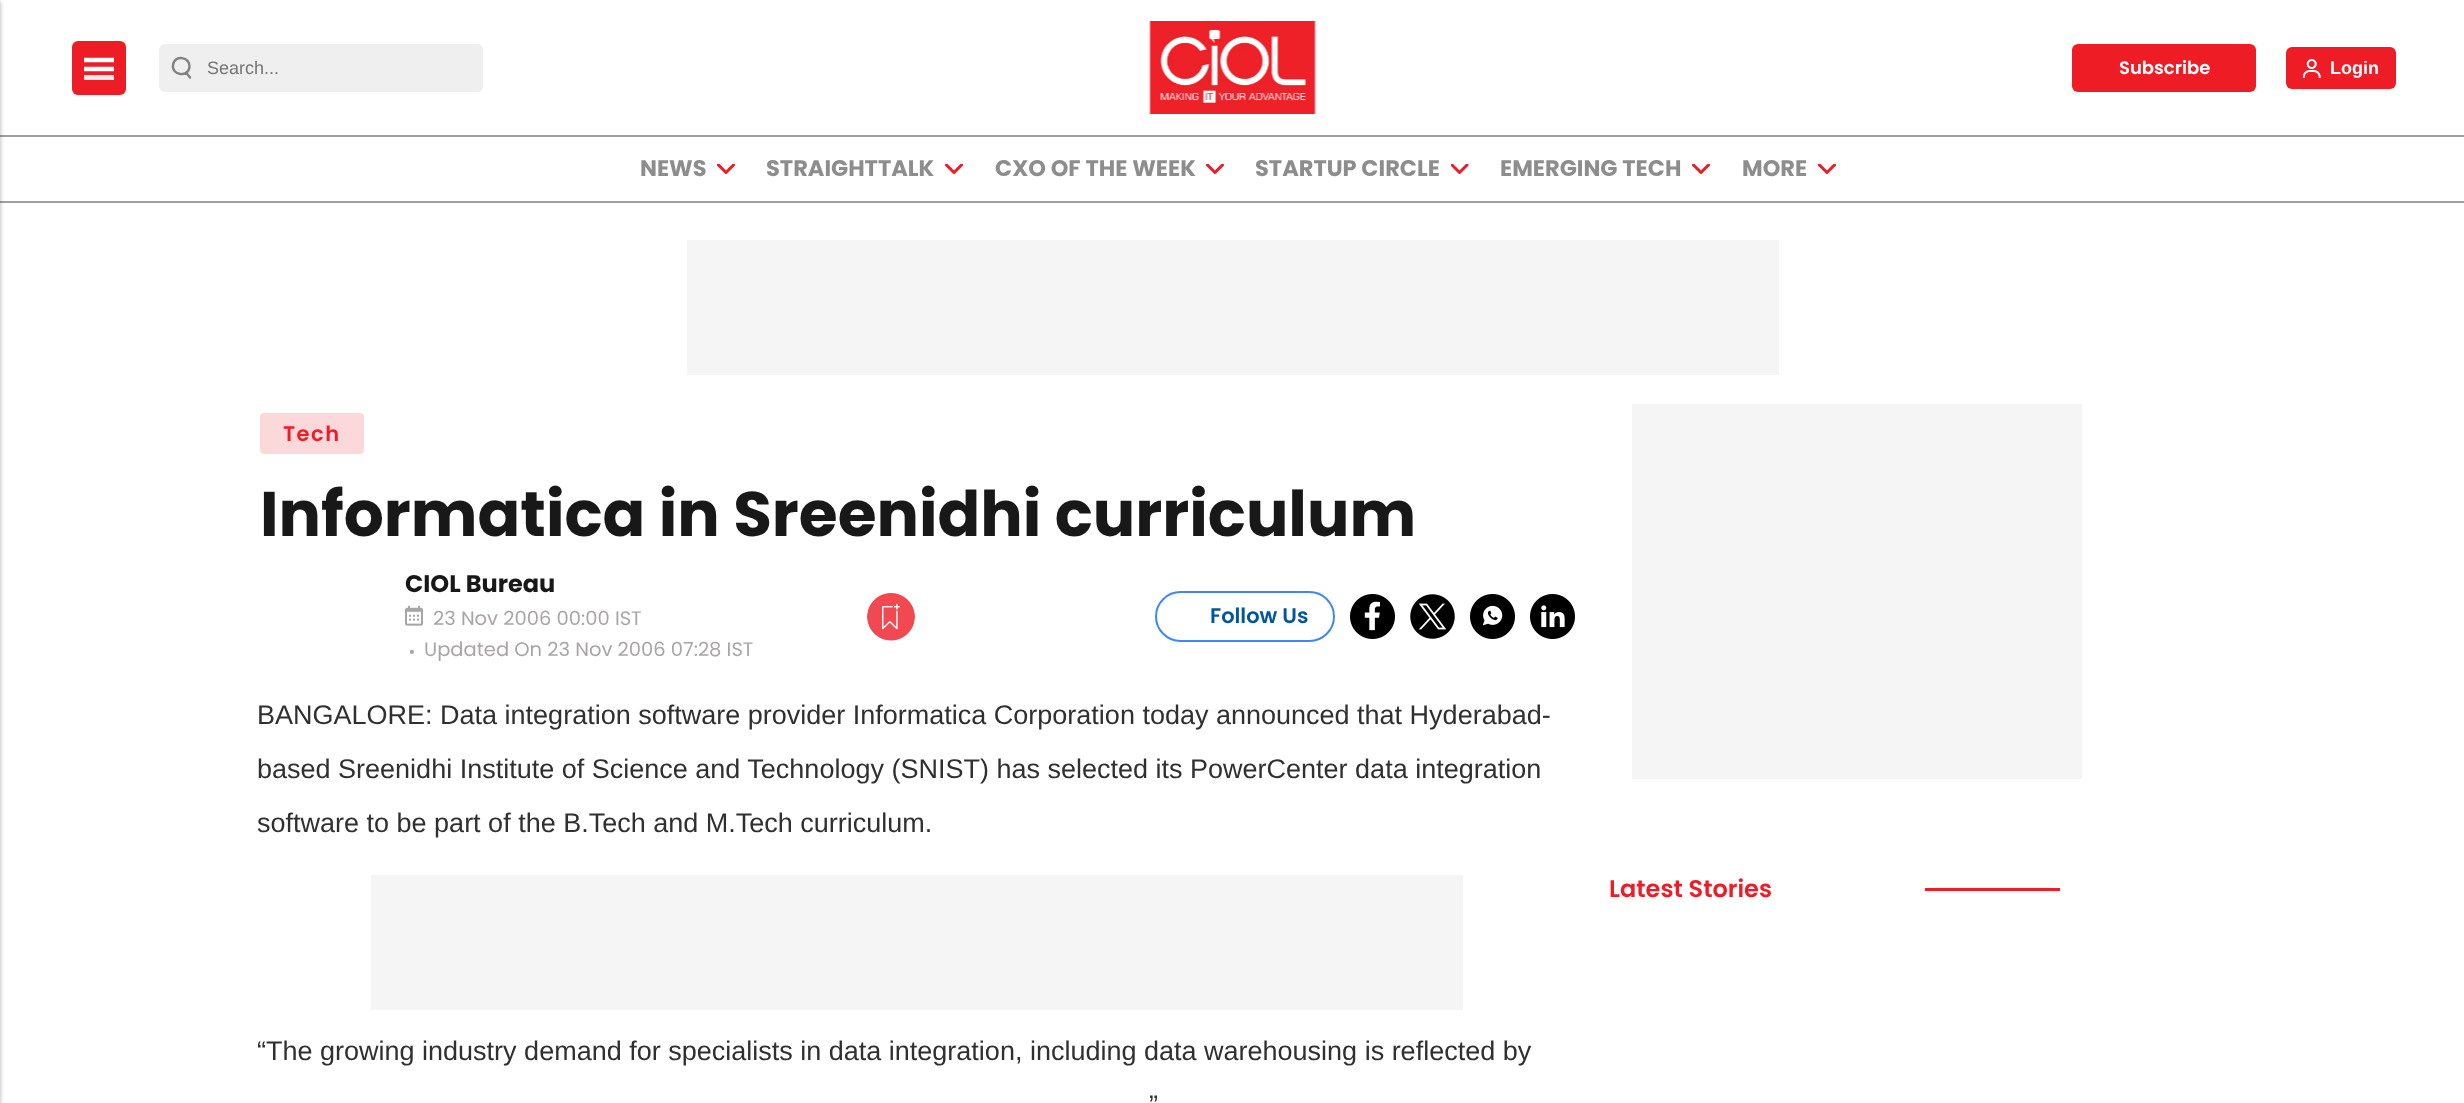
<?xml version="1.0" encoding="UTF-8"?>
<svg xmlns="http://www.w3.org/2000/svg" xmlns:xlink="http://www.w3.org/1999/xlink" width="2464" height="1103">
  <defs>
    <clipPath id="clip1"><rect x="717" y="164" width="18" height="10" /></clipPath>
    <clipPath id="clip2"><rect x="945" y="164" width="18" height="10" /></clipPath>
    <clipPath id="clip3"><rect x="1206" y="164" width="18" height="10" /></clipPath>
    <clipPath id="clip4"><rect x="1451" y="164" width="18" height="10" /></clipPath>
    <clipPath id="clip5"><rect x="1692" y="164" width="18" height="10" /></clipPath>
    <clipPath id="clip6"><rect x="1818" y="164" width="18" height="10" /></clipPath>
    <clipPath id="clip7"><rect x="410" y="650" width="5" height="5" /></clipPath>
  </defs>
  <rect width="100%" height="100%" fill="#ffffff" />
  <rect y="135" width="2464" height="2" fill="#a0a0a0" />
  <rect y="201" width="2464" height="2" fill="#a0a0a0" />
  <rect x="-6" y="3" width="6" height="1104" fill="#000000" fill-opacity="0.22" filter="blur(2px)" />
  <rect x="-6" width="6" height="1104" fill="#000000" fill-opacity="0.12" filter="blur(2px)" />
  <rect x="72" y="41" width="54" height="54" rx="6" fill="#ee1c25" />
  <path d="M 84 69 h 30 m -30 -9 h 30" fill="none" stroke="#ffffff" stroke-width="4.5" />
  <rect x="84" y="75" width="30" height="5" fill="#fde8e9" />
  <rect x="159" y="44" width="324" height="48" rx="6" fill="#efefef" />
  <path d="M 189.5 67 c -1.5 11 -18 8.5 -16.5 -2 c 1.5 -11 17.5 -8 16.5 2 z m 0.5 10.5 l -4 -5" fill="none" stroke="#828282" stroke-width="2.4" stroke-linecap="round" stroke-linejoin="round" />
  <rect x="204" y="44" width="279" height="48" rx="6" fill="#efefef" />
  <image x="1149" y="21" width="167" height="93" xlink:href="image1.png" />
  <rect x="2072" y="44" width="184" height="48" rx="6" fill="#ee1c25" />
  <rect x="2286" y="47" width="110" height="42" rx="6" fill="#ee1c25" />
  <image x="2303" y="59" width="18" height="19" xlink:href="image2.png" />
  <g clip-path="url(#clip1)">
    <path d="M 718.5 165 l 7.5 7.5 l 7.5 -7.5" fill="none" stroke="#ee1c25" stroke-width="3" stroke-linecap="round" stroke-linejoin="round" />
  </g>
  <g clip-path="url(#clip2)">
    <path d="M 946.5 165 l 7.5 7.5 l 7.5 -7.5" fill="none" stroke="#ee1c25" stroke-width="3" stroke-linecap="round" stroke-linejoin="round" />
  </g>
  <g clip-path="url(#clip3)">
    <path d="M 1207.5 165 l 7.5 7.5 l 7.5 -7.5" fill="none" stroke="#ee1c25" stroke-width="3" stroke-linecap="round" stroke-linejoin="round" />
  </g>
  <g clip-path="url(#clip4)">
    <path d="M 1452 165 l 7.5 7.5 l 7.5 -7.5" fill="none" stroke="#ee1c25" stroke-width="3" stroke-linecap="round" stroke-linejoin="round" />
  </g>
  <g clip-path="url(#clip5)">
    <path d="M 1693.5 165 l 7.5 7.5 l 7.5 -7.5" fill="none" stroke="#ee1c25" stroke-width="3" stroke-linecap="round" stroke-linejoin="round" />
  </g>
  <g clip-path="url(#clip6)">
    <path d="M 1819.5 165 l 7.5 7.5 l 7.5 -7.5" fill="none" stroke="#ee1c25" stroke-width="3" stroke-linecap="round" stroke-linejoin="round" />
  </g>
  <rect x="687" y="240" width="1092" height="135" fill="#f5f5f5" />
  <rect x="259" y="412" width="106" height="43" rx="5" fill="#fcd8da" stroke="#ffffff" stroke-width="2" />
  <image x="405" y="605" width="18" height="21" xlink:href="image3.png" />
  <g clip-path="url(#clip7)">
    <circle cx="411.8" cy="651.8" r="2.2" fill="#aaa7a7" />
  </g>
  <image x="867" y="593" width="48" height="48" xlink:href="image4.png" />
  <rect x="1156" y="592" width="178" height="49" rx="24.5" fill="none" stroke="#4086f4" stroke-width="2" />
  <image x="1350" y="594" width="45" height="45" xlink:href="image5.png" />
  <image x="1410" y="594" width="45" height="45" xlink:href="image6.png" />
  <image x="1470" y="594" width="45" height="45" xlink:href="image7.png" />
  <image x="1530" y="594" width="45" height="45" xlink:href="image8.png" />
  <rect x="371" y="875" width="1092" height="135" fill="#f5f5f5" />
  <rect x="1632" y="404" width="450" height="375" fill="#f5f5f5" />
  <rect x="1925" y="888" width="135" height="3" fill="#ee1c25" />
  <text x="207" y="74" style="font-family: Liberation Sans; font-size: 18px; fill: #757575">Search...</text>
  <text x="2119" y="74" style="font-family: Poppins; font-size: 18px; font-weight: 600; fill: #ffffff">Subscribe</text>
  <text x="2330" y="74" style="font-family: Liberation Sans; font-size: 18px; font-weight: bold; fill: #ffffff">Login</text>
  <text x="640" y="176" style="font-family: Poppins; font-size: 22.5px; font-weight: bold; fill: #8d8d8d">NEWS</text>
  <text x="766" y="176" style="font-family: Poppins; font-size: 22.5px; font-weight: bold; fill: #8d8d8d">STRAIGHTTALK</text>
  <text x="995" y="176" style="font-family: Poppins; font-size: 22.5px; font-weight: bold; fill: #8d8d8d">CXO OF THE WEEK</text>
  <text x="1255" y="176" style="font-family: Poppins; font-size: 22.5px; font-weight: bold; fill: #8d8d8d">STARTUP CIRCLE</text>
  <text x="1500" y="176" style="font-family: Poppins; font-size: 22.5px; font-weight: bold; fill: #8d8d8d">EMERGING TECH</text>
  <text x="1742" y="176" style="font-family: Poppins; font-size: 22.5px; font-weight: bold; fill: #8d8d8d">MORE</text>
  <text x="283" y="441" style="font-family: Poppins; font-size: 21px; font-weight: 600; letter-spacing: 1.5px; fill: #ee1c25">Tech</text>
  <text x="260" y="536" style="font-family: Poppins; font-size: 63px; font-weight: bold; fill: #181818">Informatica in Sreenidhi curriculum</text>
  <text x="405" y="592" style="font-family: Poppins; font-size: 24px; font-weight: bold; fill: #181818">CIOL Bureau</text>
  <text x="433" y="625" style="font-family: Poppins; font-size: 19.5px; fill: #a9a5a5">23 Nov 2006 00:00 IST</text>
  <text x="424" y="656" style="font-family: Poppins; font-size: 19.5px; fill: #a9a5a5">Updated On 23 Nov 2006 07:28 IST</text>
  <text x="1210" y="623" style="font-family: Poppins; font-size: 21px; font-weight: 600; fill: #01579b">Follow Us</text>
  <text x="257" y="724" style="font-family: Liberation Sans; font-size: 27px; fill: #303030">BANGALORE: Data integration software provider Informatica Corporation today announced that Hyderabad-</text>
  <text x="257" y="778" style="font-family: Liberation Sans; font-size: 27px; fill: #303030">based Sreenidhi Institute of Science and Technology (SNIST) has selected its PowerCenter data integration</text>
  <text x="257" y="832" style="font-family: Liberation Sans; font-size: 27px; fill: #303030">software to be part of the B.Tech and M.Tech curriculum.</text>
  <text x="257" y="1060" style="font-family: Liberation Sans; font-size: 27px; fill: #303030">“The growing industry demand for specialists in data integration, including data warehousing is reflected by</text>
  <text x="1149" y="1114" style="font-family: Liberation Sans; font-size: 27px; fill: #303030">”</text>
  <text x="1609" y="897" style="font-family: Poppins; font-size: 24px; font-weight: 600; fill: #ee1c25">Latest Stories</text>
</svg>
